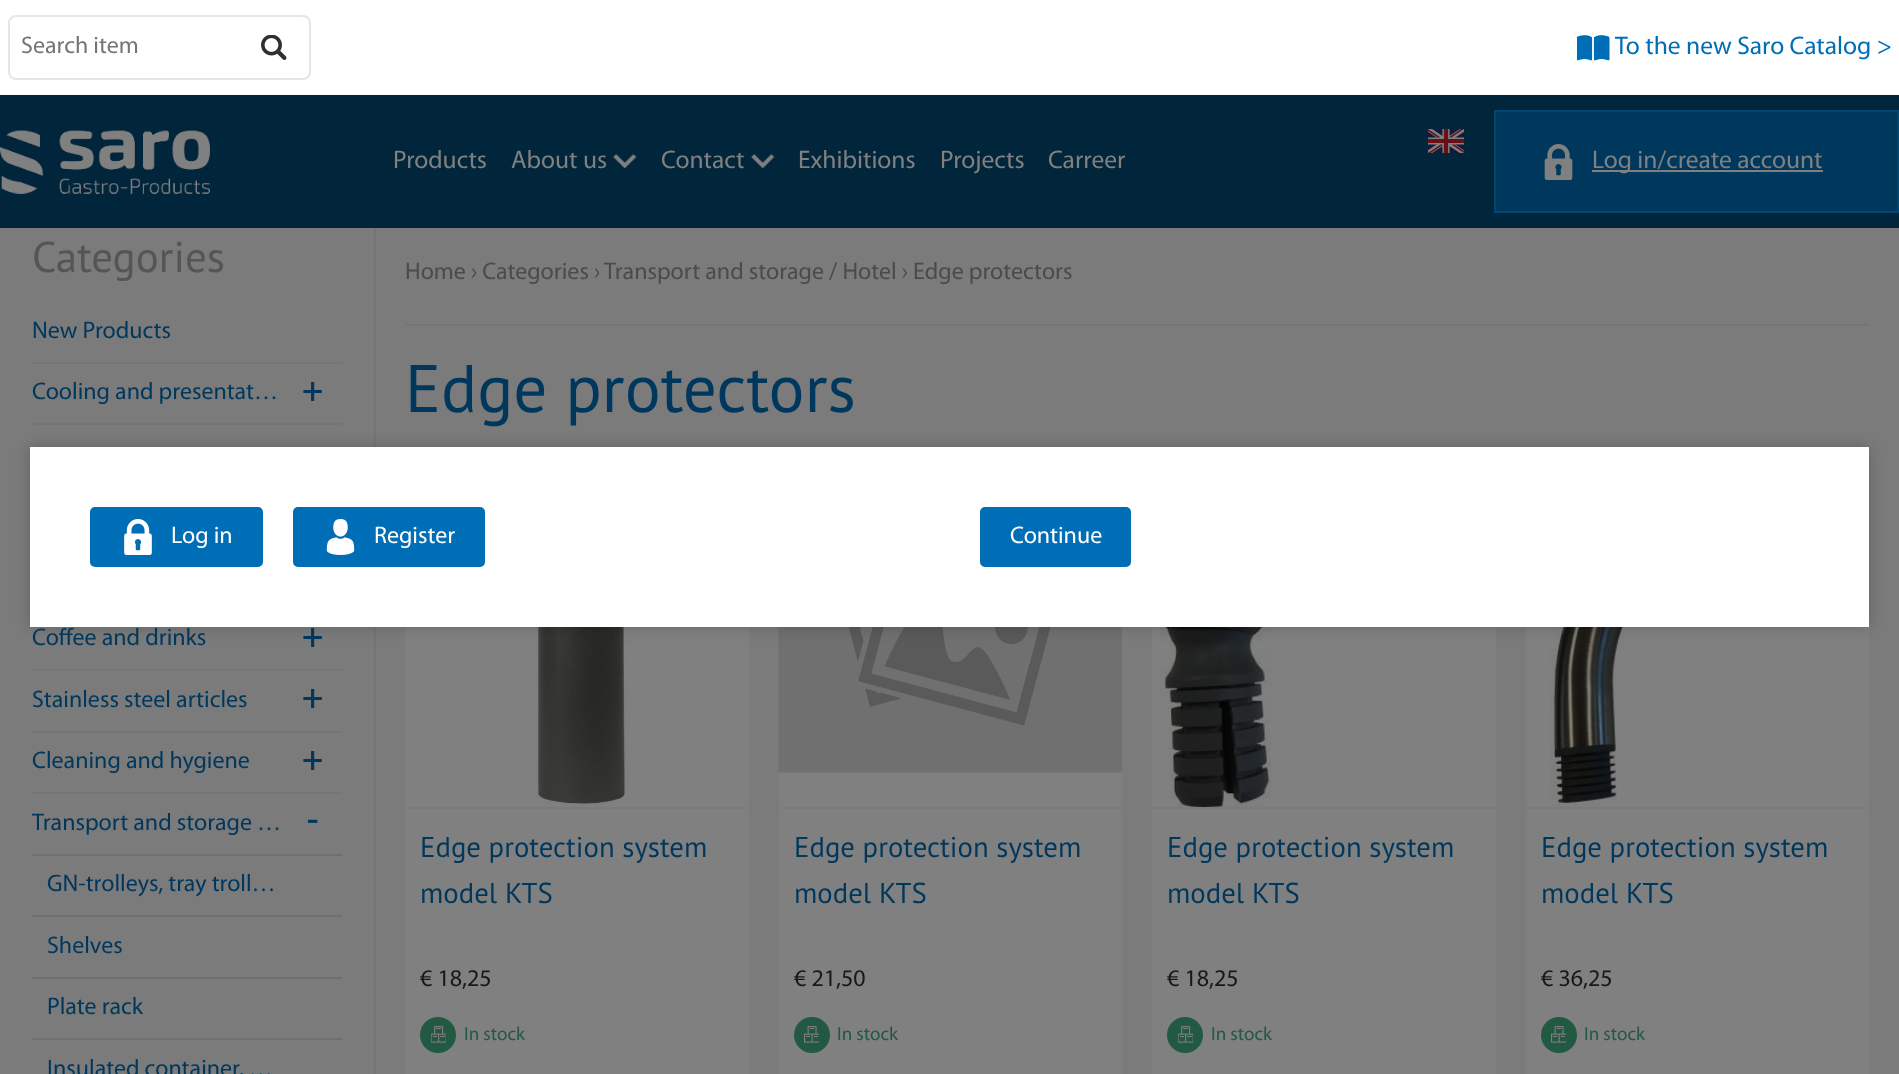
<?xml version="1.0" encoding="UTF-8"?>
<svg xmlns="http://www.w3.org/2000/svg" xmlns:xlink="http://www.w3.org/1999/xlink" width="1899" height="1074">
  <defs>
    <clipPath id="clip1"><rect x="32" y="794" width="310" height="60" /></clipPath>
  </defs>
  <rect width="100%" height="100%" fill="#7b7b7b" />
  <rect width="1899" height="95" fill="#ffffff" />
  <rect x="9" y="16" width="301" height="63" rx="7" fill="none" stroke="#e6e6e6" stroke-width="2" />
  <image x="261" y="35" width="26" height="25" xlink:href="image1.png" />
  <image x="1577" y="35" width="33" height="26" xlink:href="image2.png" />
  <rect x="374" y="225" width="2" height="849" fill="#757575" />
  <rect y="95" width="1899" height="133" fill="#01253a" />
  <image x="0" y="130" width="210" height="64" xlink:href="image3.png" />
  <image x="613" y="154" width="24" height="15" xlink:href="image4.png" />
  <image x="751" y="154" width="24" height="15" xlink:href="image5.png" />
  <image x="1428" y="129" width="36" height="24" xlink:href="image6.png" />
  <rect x="1495" y="111" width="403" height="101" fill="#00375c" stroke="#004775" stroke-width="2" />
  <image x="1544" y="144" width="29" height="36" xlink:href="image7.png" />
  <rect x="1592" y="170" width="231" height="2" fill="#808080" />
  <rect x="32" y="362" width="310" height="2" fill="#757575" />
  <rect x="32" y="423" width="310" height="2" fill="#757575" />
  <rect x="32" y="669" width="310" height="2" fill="#757575" />
  <rect x="32" y="731" width="310" height="2" fill="#757575" />
  <rect x="32" y="792" width="310" height="2" fill="#757575" />
  <rect x="32" y="854" width="310" height="2" fill="#6f6f6f" />
  <rect x="32" y="915" width="310" height="2" fill="#6f6f6f" />
  <rect x="32" y="977" width="310" height="2" fill="#6f6f6f" />
  <rect x="32" y="1038" width="310" height="2" fill="#6f6f6f" />
  <rect x="405" y="324" width="1464" height="2" fill="#757575" />
  <rect x="405" y="627" width="344" height="447" fill="#808080" />
  <image x="534" y="627" width="95" height="177" xlink:href="image8.png" />
  <rect x="405" y="807" width="344" height="2" fill="#7b7b7b" />
  <circle cx="438" cy="1035" r="18" fill="#225942" />
  <image x="431" y="1026" width="15" height="17" xlink:href="image9.png" />
  <rect x="779" y="772" width="343" height="302" fill="#808080" />
  <image x="778" y="627" width="344" height="146" xlink:href="image10.png" />
  <rect x="779" y="807" width="343" height="2" fill="#7b7b7b" />
  <circle cx="812" cy="1035" r="18" fill="#225942" />
  <image x="804" y="1026" width="15" height="17" xlink:href="image11.png" />
  <rect x="1152" y="627" width="344" height="447" fill="#808080" />
  <image x="1159" y="627" width="331" height="180" xlink:href="image12.png" />
  <rect x="1152" y="807" width="344" height="2" fill="#7b7b7b" />
  <circle cx="1185" cy="1035" r="18" fill="#225942" />
  <image x="1178" y="1026" width="15" height="17" xlink:href="image9.png" />
  <rect x="1526" y="627" width="343" height="447" fill="#808080" />
  <image x="1549" y="627" width="298" height="180" xlink:href="image13.png" />
  <rect x="1526" y="807" width="343" height="2" fill="#7b7b7b" />
  <circle cx="1559" cy="1035" r="18" fill="#225942" />
  <image x="1551" y="1026" width="15" height="17" xlink:href="image11.png" />
  <rect x="30" y="447" width="1839" height="180" fill="#000000" fill-opacity="0.2" filter="blur(7.5px)" />
  <rect x="30" y="447" width="1839" height="180" fill="#ffffff" />
  <rect x="90" y="507" width="173" height="60" rx="5" fill="#006eb7" />
  <image x="124" y="519" width="28" height="36" xlink:href="image14.png" />
  <rect x="293" y="507" width="192" height="60" rx="5" fill="#006eb7" />
  <image x="326" y="519" width="29" height="36" xlink:href="image15.png" />
  <rect x="980" y="507" width="151" height="60" rx="5" fill="#006eb7" />
  <text x="21" y="53" style="font-family: Myriad; font-size: 24px; fill: #757575">Search item</text>
  <text x="1615" y="54" style="font-family: Myriad; font-size: 25.5px; fill: #006eb7">To the new Saro Catalog &gt;</text>
  <text x="393" y="168" style="font-family: Myriad; font-size: 25.5px; fill: #808080">Products</text>
  <text x="511" y="168" style="font-family: Myriad; font-size: 25.5px; fill: #808080">About us</text>
  <text x="661" y="168" style="font-family: Myriad; font-size: 25.5px; fill: #808080">Contact</text>
  <text x="798" y="168" style="font-family: Myriad; font-size: 25.5px; fill: #808080">Exhibitions</text>
  <text x="940" y="168" style="font-family: Myriad; font-size: 25.5px; fill: #808080">Projects</text>
  <text x="1048" y="168" style="font-family: Myriad; font-size: 25.5px; fill: #808080">Carreer</text>
  <text x="1592" y="168" style="font-family: Myriad; font-size: 25.5px; fill: #808080">Log in/create account</text>
  <text x="32" y="272" style="font-family: PT Sans; font-size: 43px; fill: #555555">Categories</text>
  <text x="32" y="338" style="font-family: Myriad; font-size: 24px; fill: #00375c">New Products</text>
  <text x="32" y="399" style="font-family: Myriad; font-size: 24px; fill: #00375c">Cooling and presentat…</text>
  <text x="302" y="401" style="font-family: Myriad; font-size: 34px; font-weight: bold; fill: #00375c">+</text>
  <text x="32" y="645" style="font-family: Myriad; font-size: 24px; fill: #00375c">Coffee and drinks</text>
  <text x="302" y="647" style="font-family: Myriad; font-size: 34px; font-weight: bold; fill: #00375c">+</text>
  <text x="32" y="707" style="font-family: Myriad; font-size: 24px; fill: #00375c">Stainless steel articles</text>
  <text x="302" y="708" style="font-family: Myriad; font-size: 34px; font-weight: bold; fill: #00375c">+</text>
  <text x="32" y="768" style="font-family: Myriad; font-size: 24px; fill: #00375c">Cleaning and hygiene</text>
  <text x="302" y="770" style="font-family: Myriad; font-size: 34px; font-weight: bold; fill: #00375c">+</text>
  <g clip-path="url(#clip1)">
    <text x="32" y="830" style="font-family: Myriad; font-size: 24px; fill: #00375c">Transport and storage …</text>
  </g>
  <text x="307" y="831" style="font-family: Myriad; font-size: 34px; font-weight: bold; fill: #00375c">-</text>
  <text x="47" y="891" style="font-family: Myriad; font-size: 24px; fill: #00375c">GN-trolleys, tray troll…</text>
  <text x="47" y="953" style="font-family: Myriad; font-size: 24px; fill: #00375c">Shelves</text>
  <text x="47" y="1014" style="font-family: Myriad; font-size: 24px; fill: #00375c">Plate rack</text>
  <text x="47" y="1076" style="font-family: Myriad; font-size: 24px; fill: #00375c">Insulated container, …</text>
  <text x="405" y="279" style="font-family: Myriad; font-size: 24px; fill: #4b4b4b">Home › Categories</text>
  <text x="594" y="279" style="font-family: Myriad; font-size: 24px; fill: #4b4b4b">›</text>
  <text x="604" y="279" style="font-family: Myriad; font-size: 24px; fill: #4b4b4b">Transport and storage / Hotel › Edge protectors</text>
  <text x="405" y="412" style="font-family: PT Sans; font-size: 67.25px; fill: #00375c">Edge protectors</text>
  <text x="420" y="857" style="font-family: PT Sans; font-size: 28.75px; fill: #00375c">Edge protection system</text>
  <text x="420" y="903" style="font-family: PT Sans; font-size: 28.75px; fill: #00375c">model KTS</text>
  <text x="420" y="986" style="font-family: Myriad; font-size: 24px; fill: #181818">€ 18,25</text>
  <text x="464" y="1040" style="font-family: Myriad; font-size: 19px; fill: #225942">In stock</text>
  <text x="794" y="857" style="font-family: PT Sans; font-size: 28.75px; fill: #00375c">Edge protection system</text>
  <text x="794" y="903" style="font-family: PT Sans; font-size: 28.75px; fill: #00375c">model KTS</text>
  <text x="794" y="986" style="font-family: Myriad; font-size: 24px; fill: #181818">€ 21,50</text>
  <text x="837" y="1040" style="font-family: Myriad; font-size: 19px; fill: #225942">In stock</text>
  <text x="1167" y="857" style="font-family: PT Sans; font-size: 28.75px; fill: #00375c">Edge protection system</text>
  <text x="1167" y="903" style="font-family: PT Sans; font-size: 28.75px; fill: #00375c">model KTS</text>
  <text x="1167" y="986" style="font-family: Myriad; font-size: 24px; fill: #181818">€ 18,25</text>
  <text x="1211" y="1040" style="font-family: Myriad; font-size: 19px; fill: #225942">In stock</text>
  <text x="1541" y="857" style="font-family: PT Sans; font-size: 28.75px; fill: #00375c">Edge protection system</text>
  <text x="1541" y="903" style="font-family: PT Sans; font-size: 28.75px; fill: #00375c">model KTS</text>
  <text x="1541" y="986" style="font-family: Myriad; font-size: 24px; fill: #181818">€ 36,25</text>
  <text x="1584" y="1040" style="font-family: Myriad; font-size: 19px; fill: #225942">In stock</text>
  <text x="171" y="543" style="font-family: Myriad; font-size: 24px; fill: #ffffff">Log in</text>
  <text x="374" y="543" style="font-family: Myriad; font-size: 24px; fill: #ffffff">Register</text>
  <text x="1010" y="543" style="font-family: Myriad; font-size: 24px; fill: #ffffff">Continue</text>
</svg>
